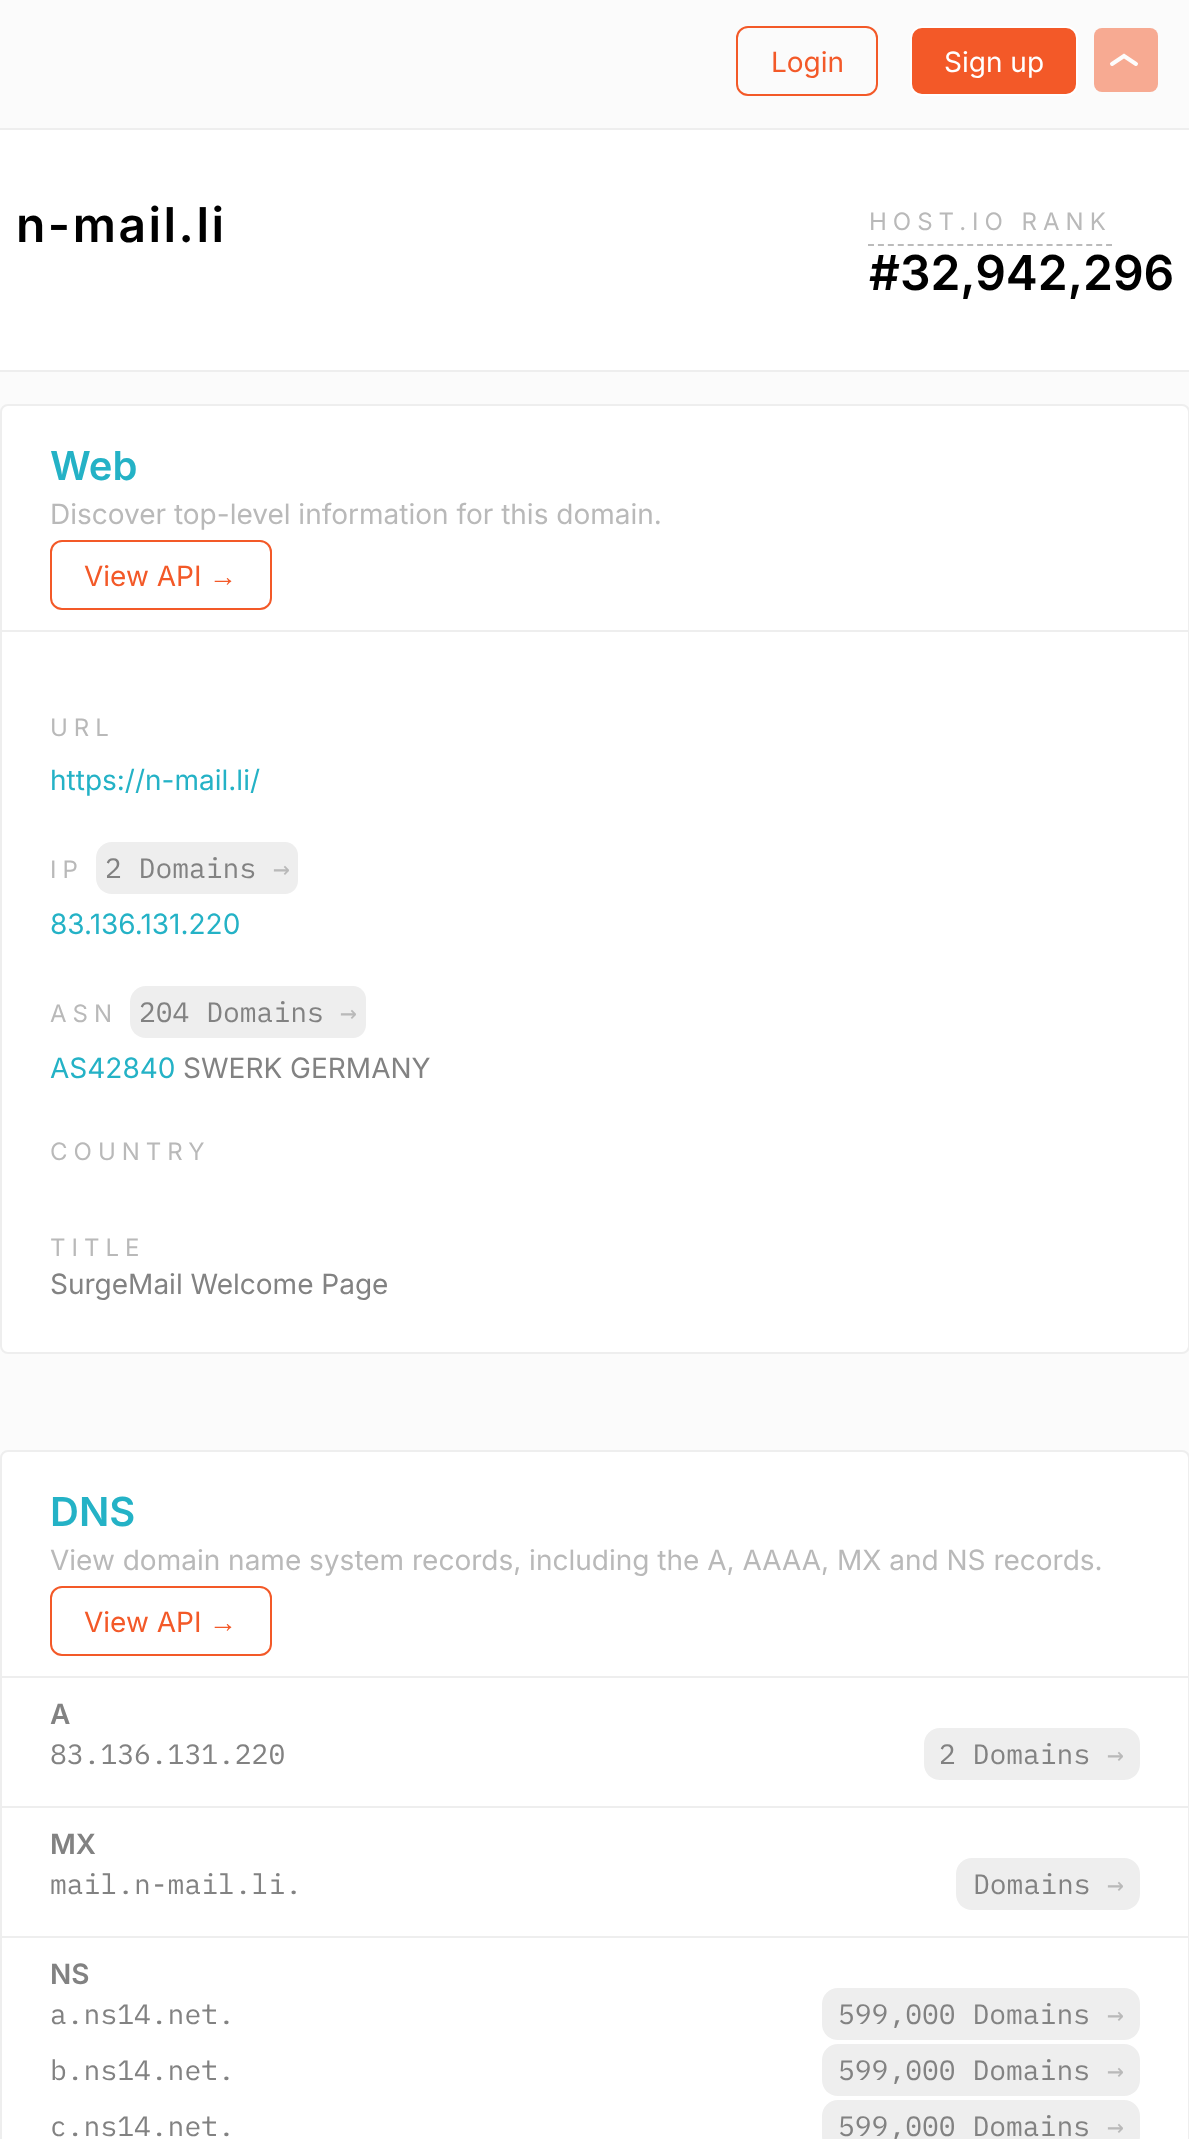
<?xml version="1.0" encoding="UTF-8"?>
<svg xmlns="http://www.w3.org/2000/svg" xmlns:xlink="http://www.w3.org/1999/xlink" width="1189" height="2139">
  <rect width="100%" height="100%" fill="#ffffff" />
  <rect width="1189" height="128" fill="#fbfbfb" />
  <rect y="128" width="1189" height="2" fill="#eeeeee" />
  <rect x="737" y="27" width="140" height="68" rx="11" fill="none" stroke="#f35928" stroke-width="2" />
  <rect x="911" y="27" width="166" height="68" rx="11" fill="#f35928" stroke="#ffffff" stroke-width="2" />
  <rect x="1094" y="28" width="64" height="64" rx="8" fill="#f7aa92" />
  <path d="M 1112 64 l 12 -8 l 12 8" fill="none" stroke="#fdfdfd" stroke-width="4" stroke-linecap="round" />
  <path d="M 868 245 h 244" fill="none" stroke="#bbbbbb" stroke-width="2" stroke-dasharray="6 3.92" />
  <rect y="372" width="1189" height="1086" fill="#fbfbfb" />
  <rect y="370" width="1189" height="2" fill="#eeeeee" />
  <rect x="1" y="405" width="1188" height="948" rx="7" fill="#ffffff" stroke="#eeeeee" stroke-width="2" />
  <rect x="2" y="630" width="1186" height="2" fill="#eeeeee" />
  <rect x="51" y="541" width="220" height="68" rx="11" fill="none" stroke="#f35928" stroke-width="2" />
  <path d="M 112 842 h 160 v 52 h -160 c -9 0 -16 -7 -16 -16 v -20 c 0 -9 7 -16 16 -16 z" fill="#eeeeee" />
  <path d="M 272 842 h 13 c 7 0 13 6 13 13 v 26 c 0 7 -6 13 -13 13 h -13 z" fill="#eeeeee" />
  <path d="M 146 986 h 194 v 52 h -194 c -9 0 -16 -7 -16 -16 v -20 c 0 -9 7 -16 16 -16 z" fill="#eeeeee" />
  <path d="M 340 986 h 13 c 7 0 13 6 13 13 v 26 c 0 7 -6 13 -13 13 h -13 z" fill="#eeeeee" />
  <rect x="1" y="1451" width="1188" height="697" rx="7" fill="#ffffff" stroke="#eeeeee" stroke-width="2" />
  <rect x="2" y="1676" width="1186" height="2" fill="#eeeeee" />
  <rect x="51" y="1587" width="220" height="68" rx="11" fill="none" stroke="#f35928" stroke-width="2" />
  <rect x="2" y="1806" width="1186" height="2" fill="#eeeeee" />
  <path d="M 940 1728 h 168 v 52 h -168 c -9 0 -16 -7 -16 -16 v -20 c 0 -9 7 -16 16 -16 z" fill="#eeeeee" />
  <path d="M 1108 1728 h 16 c 9 0 16 7 16 16 v 20 c 0 9 -7 16 -16 16 h -16 z" fill="#eeeeee" />
  <rect x="2" y="1936" width="1186" height="2" fill="#eeeeee" />
  <path d="M 972 1858 h 136 v 52 h -136 c -9 0 -16 -7 -16 -16 v -20 c 0 -9 7 -16 16 -16 z" fill="#eeeeee" />
  <path d="M 1108 1858 h 16 c 9 0 16 7 16 16 v 20 c 0 9 -7 16 -16 16 h -16 z" fill="#eeeeee" />
  <path d="M 838 1988 h 270 v 52 h -270 c -9 0 -16 -7 -16 -16 v -20 c 0 -9 7 -16 16 -16 z" fill="#eeeeee" />
  <path d="M 1108 1988 h 16 c 9 0 16 7 16 16 v 20 c 0 9 -7 16 -16 16 h -16 z" fill="#eeeeee" />
  <path d="M 838 2044 h 270 v 52 h -270 c -9 0 -16 -7 -16 -16 v -20 c 0 -9 7 -16 16 -16 z" fill="#eeeeee" />
  <path d="M 1108 2044 h 16 c 9 0 16 7 16 16 v 20 c 0 9 -7 16 -16 16 h -16 z" fill="#eeeeee" />
  <path d="M 838 2100 h 270 v 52 h -270 c -9 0 -16 -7 -16 -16 v -20 c 0 -9 7 -16 16 -16 z" fill="#eeeeee" />
  <path d="M 1108 2100 h 16 c 9 0 16 7 16 16 v 20 c 0 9 -7 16 -16 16 h -16 z" fill="#eeeeee" />
  <text x="771" y="72" style="font-family: Inter; font-size: 28px; fill: #f35928">Login</text>
  <text x="944" y="72" style="font-family: Inter; font-size: 28px; fill: #ffffff">Sign up</text>
  <text x="16" y="242" style="font-family: Inter; font-size: 48px; font-weight: 600; letter-spacing: 2.5px; fill: #000000">n-mail.li</text>
  <text x="869" y="230" style="font-family: Inter; font-size: 24px; letter-spacing: 6px; fill: #b9b9b9">HOST.IO RANK</text>
  <text x="869" y="290" style="font-family: Inter; font-size: 48px; font-weight: 600; fill: #000000">#32,942,296</text>
  <text x="50" y="480" style="font-family: Inter; font-size: 40px; font-weight: 600; fill: #24b2c6">Web</text>
  <text x="50" y="524" style="font-family: Inter; font-size: 28px; fill: #b9b9b9">Discover top-level information for this domain.</text>
  <text x="84" y="586" style="font-family: Inter; font-size: 28px; fill: #f35928">View API</text>
  <text x="209" y="586" style="font-family: Liberation Sans; font-size: 28px; fill: #f35928">→</text>
  <text x="50" y="736" style="font-family: Inter; font-size: 24px; letter-spacing: 6px; fill: #b9b9b9">URL</text>
  <text x="50" y="790" style="font-family: Inter; font-size: 28px; fill: #24b2c6">https://n-mail.li/</text>
  <text x="50" y="878" style="font-family: Inter; font-size: 24px; letter-spacing: 6px; fill: #b9b9b9">IP</text>
  <text x="105" y="878" style="font-family: IBM Plex Mono; font-size: 28px; fill: #828282">2 Domains</text>
  <text x="273" y="878" style="font-family: DejaVu Sans Mono; font-size: 28px; fill: #b9b9b9">→</text>
  <text x="50" y="934" style="font-family: Inter; font-size: 28px; fill: #24b2c6">83.136.131.220</text>
  <text x="50" y="1022" style="font-family: Inter; font-size: 24px; letter-spacing: 6px; fill: #b9b9b9">ASN</text>
  <text x="139" y="1022" style="font-family: IBM Plex Mono; font-size: 28px; fill: #828282">204 Domains</text>
  <text x="340" y="1022" style="font-family: DejaVu Sans Mono; font-size: 28px; fill: #b9b9b9">→</text>
  <text x="50" y="1078" style="font-family: Inter; font-size: 28px; fill: #24b2c6">AS42840</text>
  <text x="183" y="1078" style="font-family: Inter; font-size: 28px; fill: #828282">SWERK GERMANY</text>
  <text x="50" y="1160" style="font-family: Inter; font-size: 24px; letter-spacing: 6px; fill: #b9b9b9">COUNTRY</text>
  <text x="50" y="1256" style="font-family: Inter; font-size: 24px; letter-spacing: 6px; fill: #b9b9b9">TITLE</text>
  <text x="50" y="1294" style="font-family: Inter; font-size: 28px; fill: #828282">SurgeMail Welcome Page</text>
  <text x="50" y="1526" style="font-family: Inter; font-size: 40px; font-weight: 600; fill: #24b2c6">DNS</text>
  <text x="50" y="1570" style="font-family: Inter; font-size: 28px; fill: #b9b9b9">View domain name system records, including the A, AAAA, MX and NS records.</text>
  <text x="84" y="1632" style="font-family: Inter; font-size: 28px; fill: #f35928">View API</text>
  <text x="209" y="1632" style="font-family: Liberation Sans; font-size: 28px; fill: #f35928">→</text>
  <text x="50" y="1724" style="font-family: Inter; font-size: 28px; font-weight: 600; fill: #828282">A</text>
  <text x="50" y="1764" style="font-family: IBM Plex Mono; font-size: 28px; fill: #828282">83.136.131.220</text>
  <text x="939" y="1764" style="font-family: IBM Plex Mono; font-size: 28px; fill: #828282">2 Domains</text>
  <text x="1107" y="1764" style="font-family: DejaVu Sans Mono; font-size: 28px; fill: #b9b9b9">→</text>
  <text x="50" y="1854" style="font-family: Inter; font-size: 28px; font-weight: 600; fill: #828282">MX</text>
  <text x="50" y="1894" style="font-family: IBM Plex Mono; font-size: 28px; fill: #828282">mail.n-mail.li.</text>
  <text x="973" y="1894" style="font-family: IBM Plex Mono; font-size: 28px; fill: #828282">Domains</text>
  <text x="1107" y="1894" style="font-family: DejaVu Sans Mono; font-size: 28px; fill: #b9b9b9">→</text>
  <text x="50" y="1984" style="font-family: Inter; font-size: 28px; font-weight: 600; fill: #828282">NS</text>
  <text x="50" y="2024" style="font-family: IBM Plex Mono; font-size: 28px; fill: #828282">a.ns14.net.</text>
  <text x="838" y="2024" style="font-family: IBM Plex Mono; font-size: 28px; fill: #828282">599,000 Domains</text>
  <text x="1107" y="2024" style="font-family: DejaVu Sans Mono; font-size: 28px; fill: #b9b9b9">→</text>
  <text x="50" y="2080" style="font-family: IBM Plex Mono; font-size: 28px; fill: #828282">b.ns14.net.</text>
  <text x="838" y="2080" style="font-family: IBM Plex Mono; font-size: 28px; fill: #828282">599,000 Domains</text>
  <text x="1107" y="2080" style="font-family: DejaVu Sans Mono; font-size: 28px; fill: #b9b9b9">→</text>
  <text x="50" y="2136" style="font-family: IBM Plex Mono; font-size: 28px; fill: #828282">c.ns14.net.</text>
  <text x="838" y="2136" style="font-family: IBM Plex Mono; font-size: 28px; fill: #828282">599,000 Domains</text>
  <text x="1107" y="2136" style="font-family: DejaVu Sans Mono; font-size: 28px; fill: #b9b9b9">→</text>
</svg>
